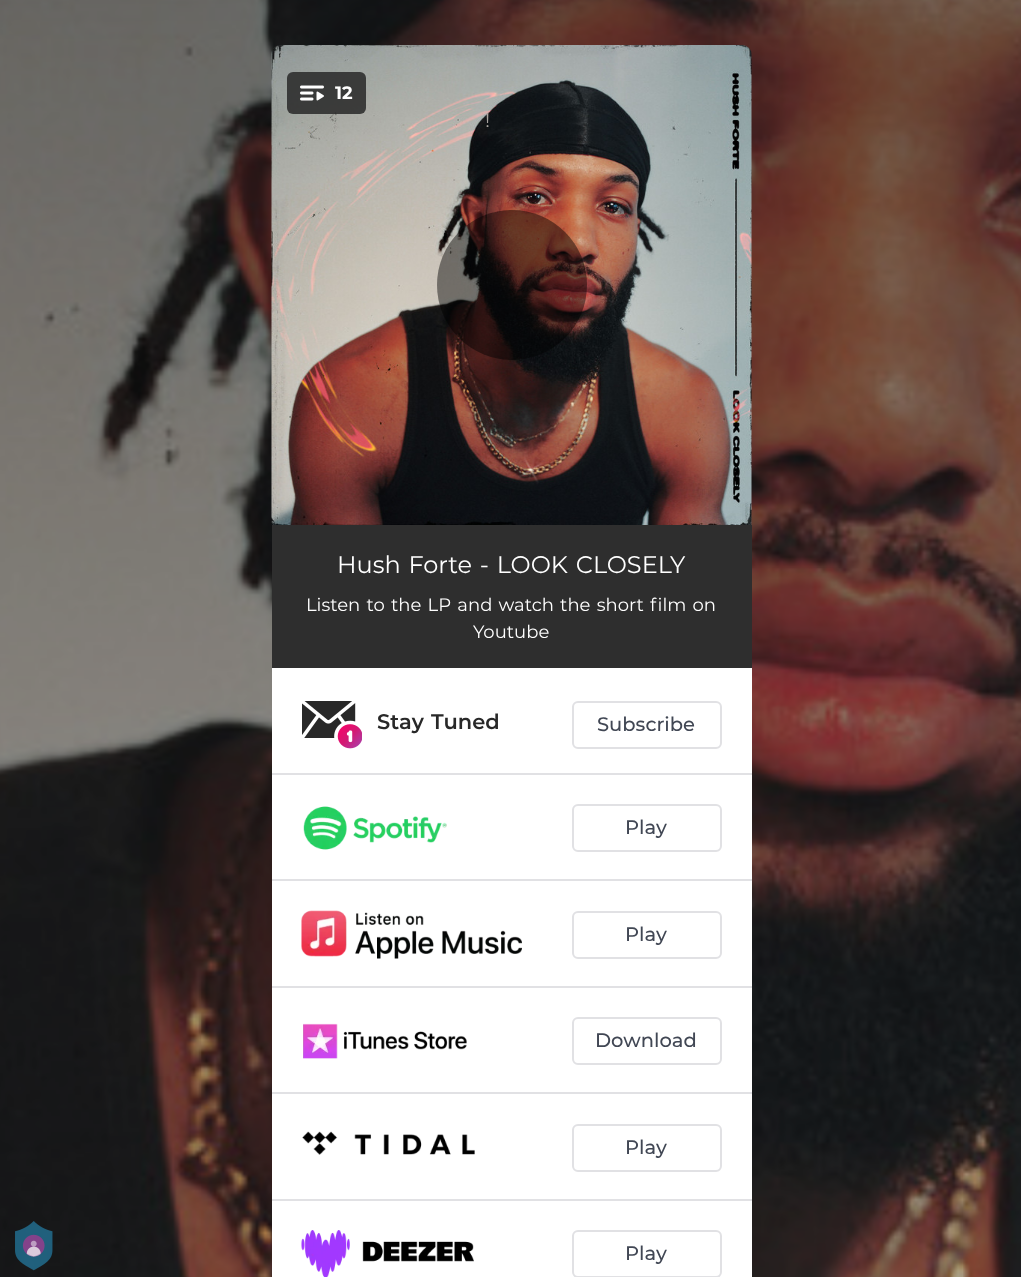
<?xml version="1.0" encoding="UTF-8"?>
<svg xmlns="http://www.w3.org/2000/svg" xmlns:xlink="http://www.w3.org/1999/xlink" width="1021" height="1277">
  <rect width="100%" height="100%" fill="#ffffff" />
  <image x="0" y="0" width="1021" height="1277" xlink:href="image2.png" />
  <image x="15" y="1221" width="38" height="50" xlink:href="image1.png" />
  <image x="271" y="45" width="481" height="480" xlink:href="image3.png" />
  <rect x="287" y="72" width="79" height="42" rx="6" fill="#282828" fill-opacity="0.85" />
  <image x="300" y="85" width="24" height="16" xlink:href="image4.png" />
  <circle cx="512" cy="285" r="75" fill="#000000" fill-opacity="0.45" />
  <rect x="272" y="525" width="480" height="143" fill="#2e2e2e" />
  <rect x="272" y="668" width="480" height="609" fill="#ffffff" />
  <rect x="272" y="773" width="480" height="2" fill="#e1e1e4" />
  <image x="302" y="701" width="60" height="48" xlink:href="image5.png" />
  <rect x="573" y="702" width="148" height="46" rx="5" fill="none" stroke="#e1e1e4" stroke-width="2" />
  <rect x="272" y="879" width="480" height="2" fill="#e1e1e4" />
  <image x="303" y="806" width="144" height="44" xlink:href="image6.png" />
  <rect x="573" y="805" width="148" height="46" rx="5" fill="none" stroke="#e1e1e4" stroke-width="2" />
  <rect x="272" y="986" width="480" height="2" fill="#e1e1e4" />
  <image x="301" y="910" width="221" height="49" xlink:href="image7.png" />
  <rect x="573" y="912" width="148" height="46" rx="5" fill="none" stroke="#e1e1e4" stroke-width="2" />
  <rect x="272" y="1092" width="480" height="2" fill="#e1e1e4" />
  <image x="303" y="1023" width="164" height="36" xlink:href="image8.png" />
  <rect x="573" y="1018" width="148" height="46" rx="5" fill="none" stroke="#e1e1e4" stroke-width="2" />
  <rect x="272" y="1199" width="480" height="2" fill="#e1e1e4" />
  <image x="302" y="1131" width="173" height="24" xlink:href="image9.png" />
  <rect x="573" y="1125" width="148" height="46" rx="5" fill="none" stroke="#e1e1e4" stroke-width="2" />
  <image x="301" y="1230" width="173" height="47" xlink:href="image10.png" />
  <rect x="573" y="1231" width="148" height="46" rx="5" fill="none" stroke="#e1e1e4" stroke-width="2" />
  <text x="335" y="99" style="font-family: Montserrat; font-size: 18px; font-weight: bold; fill: #ffffff">12</text>
  <text x="485" y="127" word-spacing="1.5" style="font-family: Montserrat; font-size: 19.5px; fill: #aaa5a0">!</text>
  <text x="337" y="573" word-spacing="1.5" style="font-family: Montserrat; font-size: 24px; fill: #ffffff">Hush Forte - LOOK CLOSELY</text>
  <text x="306" y="611" word-spacing="1.5" style="font-family: Montserrat; font-size: 18px; fill: #ffffff">Listen to the LP and watch the short film on</text>
  <text x="473" y="638" style="font-family: Montserrat; font-size: 18px; fill: #ffffff">Youtube</text>
  <text x="377" y="729" word-spacing="1.5" style="font-family: Montserrat; font-size: 21px; font-weight: 600; fill: #282828">Stay Tuned</text>
  <text x="597" y="731" style="font-family: Montserrat; font-size: 19.5px; font-weight: 500; fill: #414754">Subscribe</text>
  <text x="625" y="834" style="font-family: Montserrat; font-size: 19.5px; font-weight: 500; fill: #414754">Play</text>
  <text x="625" y="941" style="font-family: Montserrat; font-size: 19.5px; font-weight: 500; fill: #414754">Play</text>
  <text x="595" y="1047" style="font-family: Montserrat; font-size: 19.5px; font-weight: 500; fill: #414754">Download</text>
  <text x="625" y="1154" style="font-family: Montserrat; font-size: 19.5px; font-weight: 500; fill: #414754">Play</text>
  <text x="625" y="1260" style="font-family: Montserrat; font-size: 19.5px; font-weight: 500; fill: #414754">Play</text>
</svg>
